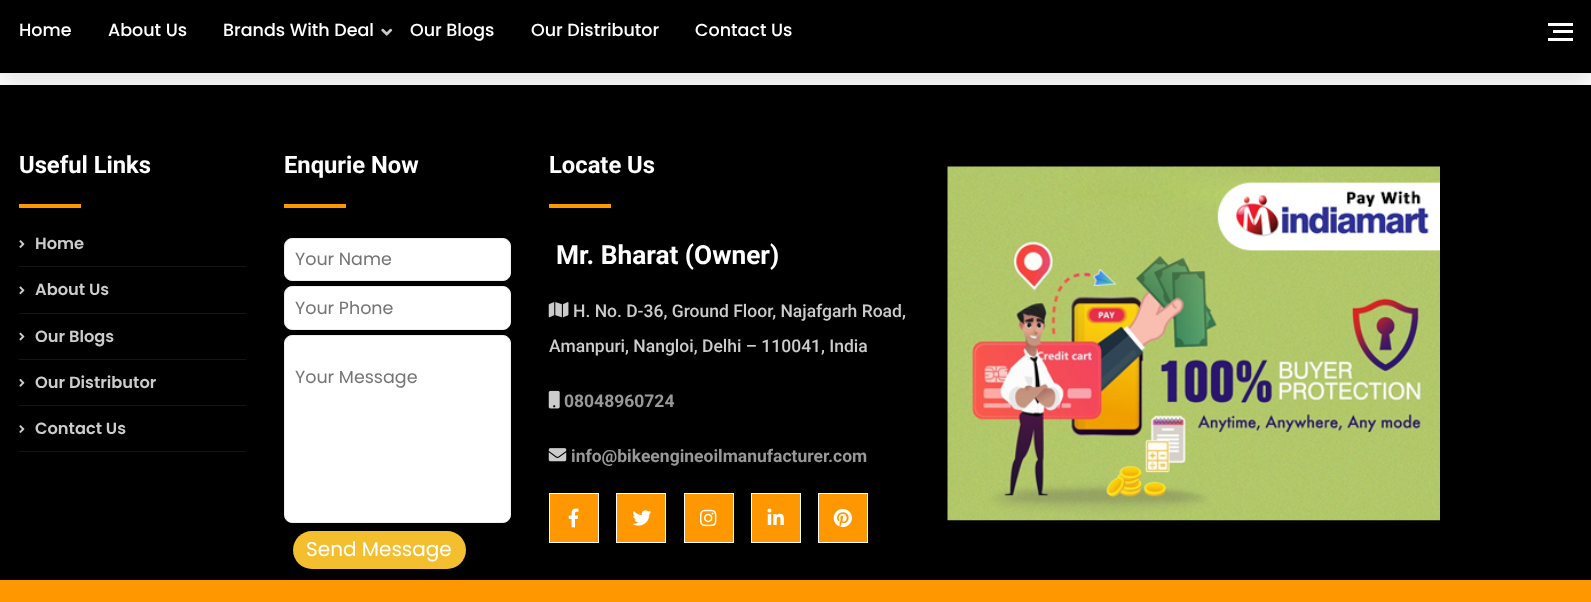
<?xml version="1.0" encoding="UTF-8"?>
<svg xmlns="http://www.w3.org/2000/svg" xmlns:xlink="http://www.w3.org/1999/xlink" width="1591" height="602">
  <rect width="100%" height="100%" fill="#ffffff" />
  <rect y="85" width="1591" height="495" fill="#000000" />
  <rect y="13" width="1591" height="73" fill="#000000" fill-opacity="0.1" filter="blur(12.5px)" />
  <rect width="1591" height="73" fill="#000000" />
  <rect y="73" width="1591" height="1" fill="#eeeeee" />
  <image x="381" y="28" width="12" height="8" xlink:href="image1.png" />
  <rect x="1548" y="23" width="25" height="3" fill="#ffffff" />
  <rect x="1553" y="30" width="20" height="3" fill="#ffffff" />
  <rect x="1548" y="38" width="25" height="3" fill="#ffffff" />
  <rect x="19" y="204" width="62" height="4" fill="#ff9800" />
  <rect x="19" y="266" width="227" height="1" fill="#151515" />
  <image x="19" y="240" width="6" height="8" xlink:href="image2.png" />
  <rect x="19" y="313" width="227" height="1" fill="#151515" />
  <image x="19" y="286" width="6" height="9" xlink:href="image3.png" />
  <rect x="19" y="359" width="227" height="1" fill="#151515" />
  <image x="19" y="332" width="6" height="9" xlink:href="image4.png" />
  <rect x="19" y="405" width="227" height="1" fill="#151515" />
  <image x="19" y="379" width="6" height="8" xlink:href="image5.png" />
  <rect x="19" y="451" width="227" height="1" fill="#151515" />
  <image x="19" y="425" width="6" height="8" xlink:href="image2.png" />
  <rect x="284" y="204" width="62" height="4" fill="#ff9800" />
  <rect x="284.5" y="238.5" width="226" height="42" rx="7.5" fill="#ffffff" stroke="#eeeeee" />
  <rect x="284.5" y="286.5" width="226" height="43" rx="7.5" fill="#ffffff" stroke="#eeeeee" />
  <rect x="284.5" y="335.5" width="226" height="187" rx="7.5" fill="#ffffff" stroke="#eeeeee" />
  <rect x="293" y="531" width="173" height="38" rx="19" fill="#f4bf2e" />
  <rect x="549" y="204" width="62" height="4" fill="#ff9800" />
  <image x="548" y="302" width="21" height="16" xlink:href="image6.png" />
  <image x="548" y="390" width="12" height="19" xlink:href="image7.png" />
  <image x="548" y="448" width="19" height="14" xlink:href="image8.png" />
  <rect x="549.5" y="493.5" width="49" height="49" fill="#ff9800" stroke="#ffffff" />
  <image x="568" y="508" width="11" height="20" xlink:href="image9.png" />
  <rect x="616.5" y="493.5" width="49" height="49" fill="#ff9800" stroke="#ffffff" />
  <image x="632" y="510" width="20" height="16" xlink:href="image10.png" />
  <rect x="684.5" y="493.5" width="49" height="49" fill="#ff9800" stroke="#ffffff" />
  <image x="700" y="509" width="17" height="18" xlink:href="image11.png" />
  <rect x="751.5" y="493.5" width="49" height="49" fill="#ff9800" stroke="#ffffff" />
  <image x="767" y="508" width="17" height="17" xlink:href="image12.png" />
  <rect x="818.5" y="493.5" width="49" height="49" fill="#ff9800" stroke="#ffffff" />
  <image x="833" y="508" width="19" height="20" xlink:href="image13.png" />
  <image x="947" y="166" width="493" height="355" xlink:href="image14.png" />
  <rect y="580" width="1591" height="22" fill="#ff9800" />
  <text x="19" y="36" style="font-family: Poppins; font-size: 17.5px; font-weight: 500; fill: #ffffff">Home</text>
  <text x="108" y="36" style="font-family: Poppins; font-size: 17.5px; font-weight: 500; fill: #ffffff">About Us</text>
  <text x="223" y="36" style="font-family: Poppins; font-size: 17.5px; font-weight: 500; fill: #ffffff">Brands With Deal</text>
  <text x="410" y="36" style="font-family: Poppins; font-size: 17.5px; font-weight: 500; fill: #ffffff">Our Blogs</text>
  <text x="531" y="36" style="font-family: Poppins; font-size: 17.5px; font-weight: 500; fill: #ffffff">Our Distributor</text>
  <text x="695" y="36" style="font-family: Poppins; font-size: 17.5px; font-weight: 500; fill: #ffffff">Contact Us</text>
  <text x="19" y="173" style="font-family: Roboto; font-size: 23.75px; font-weight: bold; fill: #ffffff">Useful Links</text>
  <text x="35" y="249" style="font-family: Poppins; font-size: 16.25px; font-weight: 600; fill: #cccccc">Home</text>
  <text x="35" y="295" style="font-family: Poppins; font-size: 16.25px; font-weight: 600; fill: #cccccc">About Us</text>
  <text x="35" y="342" style="font-family: Poppins; font-size: 16.25px; font-weight: 600; fill: #cccccc">Our Blogs</text>
  <text x="35" y="388" style="font-family: Poppins; font-size: 16.25px; font-weight: 600; fill: #cccccc">Our Distributor</text>
  <text x="35" y="434" style="font-family: Poppins; font-size: 16.25px; font-weight: 600; fill: #cccccc">Contact Us</text>
  <text x="284" y="173" style="font-family: Roboto; font-size: 23.75px; font-weight: bold; fill: #ffffff">Enqurie Now</text>
  <text x="295" y="265" style="font-family: Poppins; font-size: 17.5px; fill: #757575">Your Name</text>
  <text x="295" y="314" style="font-family: Poppins; font-size: 17.5px; fill: #757575">Your Phone</text>
  <text x="295" y="383" style="font-family: Poppins; font-size: 17.5px; fill: #757575">Your Message</text>
  <text x="306" y="556" style="font-family: Poppins; font-size: 20px; fill: #ffffff">Send Message</text>
  <text x="549" y="173" style="font-family: Roboto; font-size: 23.75px; font-weight: bold; fill: #ffffff">Locate Us</text>
  <text x="556" y="264" style="font-family: Roboto; font-size: 26.25px; font-weight: bold; fill: #ffffff">Mr. Bharat (Owner)</text>
  <text x="573" y="317" style="font-family: Roboto; font-size: 17.5px; font-weight: 500; fill: #cccccc">H. No. D-36, Ground Floor, Najafgarh Road,</text>
  <text x="549" y="352" style="font-family: Roboto; font-size: 17.5px; font-weight: 500; fill: #cccccc">Amanpuri, Nangloi, Delhi – 110041, India</text>
  <text x="564" y="407" style="font-family: Roboto; font-size: 17.5px; font-weight: bold; fill: #989898">08048960724</text>
  <text x="571" y="462" style="font-family: Roboto; font-size: 17.5px; font-weight: bold; fill: #989898">info@bikeengineoilmanufacturer.com</text>
</svg>
